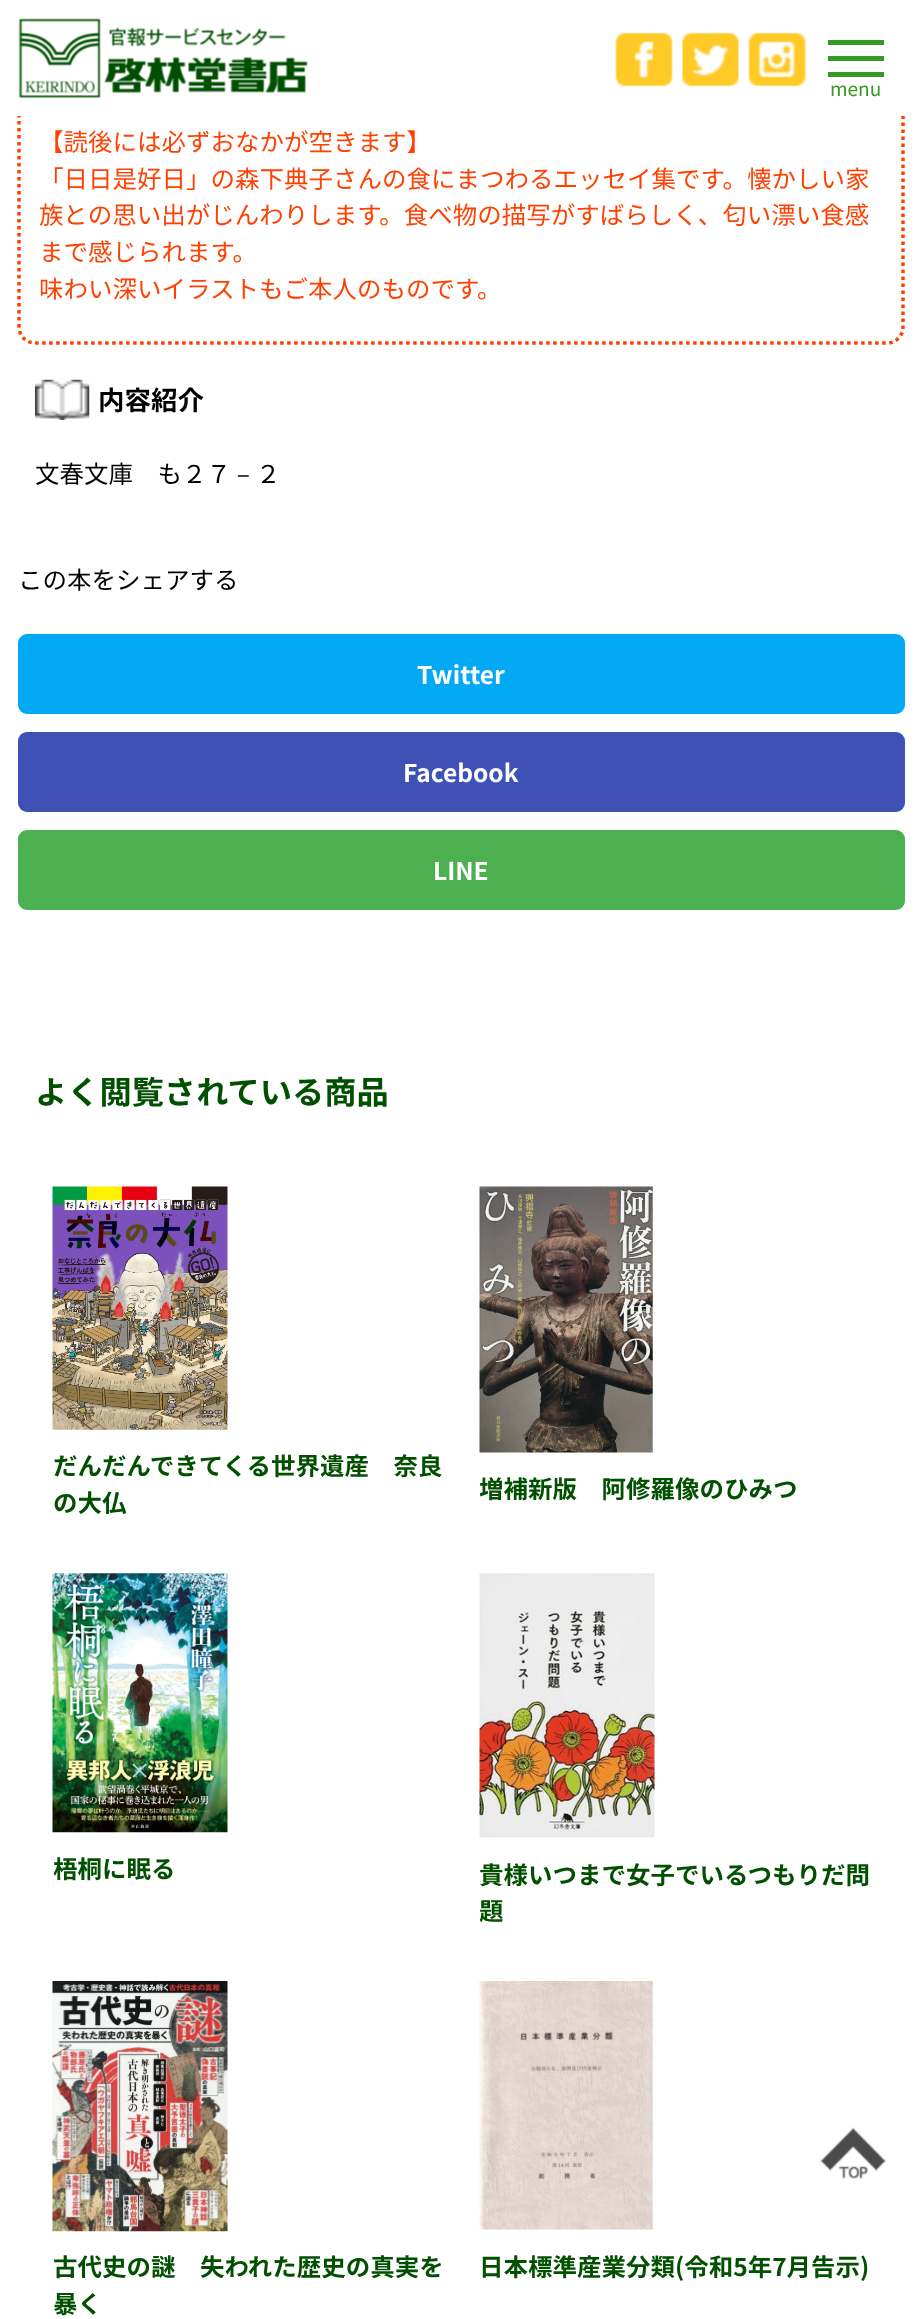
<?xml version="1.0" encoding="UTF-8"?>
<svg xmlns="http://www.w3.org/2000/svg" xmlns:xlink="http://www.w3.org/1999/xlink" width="922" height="2319">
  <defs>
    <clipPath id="clip1"><rect x="480" y="1470" width="390" height="37" /></clipPath>
    <clipPath id="clip2"><rect x="480" y="1855" width="390" height="74" /></clipPath>
  </defs>
  <rect width="100%" height="100%" fill="#ffffff" />
  <path d="M 35 10.5 h 852 c 9 0 16 7 16 15.5 v 301 c 0 9 -7 16 -16 16 h -852 c -8.5 0 -16 -7 -16 -16 v -301 c 0 -8.5 7.5 -15.5 16 -15.5 z" fill="none" stroke="#ff4000" stroke-width="3.5" stroke-dasharray="3.5 3.5" />
  <rect x="17" y="8" width="888" height="108" fill="#ffffff" />
  <image x="18" y="18" width="290" height="81" xlink:href="image1.png" />
  <image x="615" y="32" width="58" height="55" xlink:href="image2.png" />
  <image x="682" y="32" width="57" height="55" xlink:href="image3.png" />
  <image x="748" y="32" width="58" height="55" xlink:href="image4.png" />
  <rect x="828" y="40" width="56" height="5" fill="#359a21" />
  <rect x="828" y="56" width="56" height="5" fill="#359a21" />
  <rect x="828" y="72" width="56" height="5" fill="#359a21" />
  <image x="35" y="379" width="55" height="41" xlink:href="image5.png" />
  <rect x="19" y="635" width="885" height="78" rx="8" fill="#04a9f4" stroke="#04a9f4" stroke-width="2" />
  <rect x="19" y="733" width="885" height="78" rx="8" fill="#3f51b5" stroke="#3f51b5" stroke-width="2" />
  <rect x="19" y="831" width="885" height="78" rx="8" fill="#4caf50" stroke="#4caf50" stroke-width="2" />
  <image x="52" y="1186" width="176" height="244" xlink:href="image6.png" />
  <image x="479" y="1186" width="174" height="267" xlink:href="image7.png" />
  <image x="52" y="1573" width="176" height="260" xlink:href="image8.png" />
  <image x="479" y="1573" width="176" height="265" xlink:href="image9.png" />
  <image x="52" y="1981" width="176" height="251" xlink:href="image10.png" />
  <image x="479" y="1981" width="174" height="249" xlink:href="image11.png" />
  <image x="820" y="2127" width="67" height="53" xlink:href="image12.png" />
  <text x="830" y="96" style="font-family: Noto Sans JP; font-size: 19px; fill: #359a21">menu</text>
  <text x="39" y="151" style="font-family: Noto Sans JP; font-size: 24.5px; fill: #ff4000">【読後には必ずおなかが空きます】</text>
  <text x="39" y="188" style="font-family: Noto Sans JP; font-size: 24.5px; fill: #ff4000">「日日是好日」の森下典子さんの食にまつわるエッセイ集です。懐かしい家</text>
  <text x="39" y="224" style="font-family: Noto Sans JP; font-size: 24.5px; fill: #ff4000">族との思い出がじんわりします。食べ物の描写がすばらしく、匂い漂い食感</text>
  <text x="39" y="261" style="font-family: Noto Sans JP; font-size: 24.5px; fill: #ff4000">まで感じられます。</text>
  <text x="39" y="298" style="font-family: Noto Sans JP; font-size: 24.5px; fill: #ff4000">味わい深いイラストもご本人のものです。</text>
  <text x="98" y="410" style="font-family: Noto Sans JP; font-size: 26.5px; font-weight: bold; fill: #000000">内容紹介</text>
  <text x="35" y="483" style="font-family: Noto Sans JP; font-size: 24.5px; fill: #000000">文春文庫　も２７</text>
  <text x="231" y="483" style="font-family: WenQuanYi Zen Hei; font-size: 24.5px; font-weight: 500; fill: #000000">－</text>
  <text x="256" y="483" style="font-family: Noto Sans JP; font-size: 24.5px; fill: #000000">２</text>
  <text x="18" y="589" style="font-family: Noto Sans JP; font-size: 24.5px; fill: #000000">この本をシェアする</text>
  <text x="417" y="684" style="font-family: Noto Sans JP; font-size: 24.5px; font-weight: bold; fill: #ffffff">Twitter</text>
  <text x="403" y="782" style="font-family: Noto Sans JP; font-size: 24.5px; font-weight: bold; fill: #ffffff">Facebook</text>
  <text x="433" y="880" style="font-family: Noto Sans JP; font-size: 24.5px; font-weight: bold; fill: #ffffff">LINE</text>
  <text x="35" y="1104" style="font-family: Noto Sans JP; font-size: 32.25px; font-weight: bold; fill: #005000">よく閲覧されている商品</text>
  <text x="53" y="1475" style="font-family: Noto Sans JP; font-size: 24.5px; font-weight: bold; fill: #005000">だんだんできてくる世界遺産　奈良</text>
  <text x="53" y="1512" style="font-family: Noto Sans JP; font-size: 24.5px; font-weight: bold; fill: #005000">の大仏</text>
  <g clip-path="url(#clip1)">
    <text x="479" y="1498" style="font-family: Noto Sans JP; font-size: 24.5px; font-weight: bold; fill: #005000">増補新版　阿修羅像のひみつ</text>
  </g>
  <text x="53" y="1878" style="font-family: Noto Sans JP; font-size: 24.5px; font-weight: bold; fill: #005000">梧桐に眠る</text>
  <text x="479" y="1884" style="font-family: Noto Sans JP; font-size: 24.5px; font-weight: bold; fill: #005000">貴様いつまで女子でいるつもりだ問</text>
  <g clip-path="url(#clip2)">
    <text x="479" y="1920" style="font-family: Noto Sans JP; font-size: 24.5px; font-weight: bold; fill: #005000">題</text>
  </g>
  <text x="53" y="2276" style="font-family: Noto Sans JP; font-size: 24.5px; font-weight: bold; fill: #005000">古代史の謎　失われた歴史の真実を</text>
  <text x="53" y="2313" style="font-family: Noto Sans JP; font-size: 24.5px; font-weight: bold; fill: #005000">暴く</text>
  <text x="479" y="2276" style="font-family: Noto Sans JP; font-size: 24.5px; font-weight: bold; fill: #005000">日本標準産業分類(令和5年7月告示)</text>
</svg>
